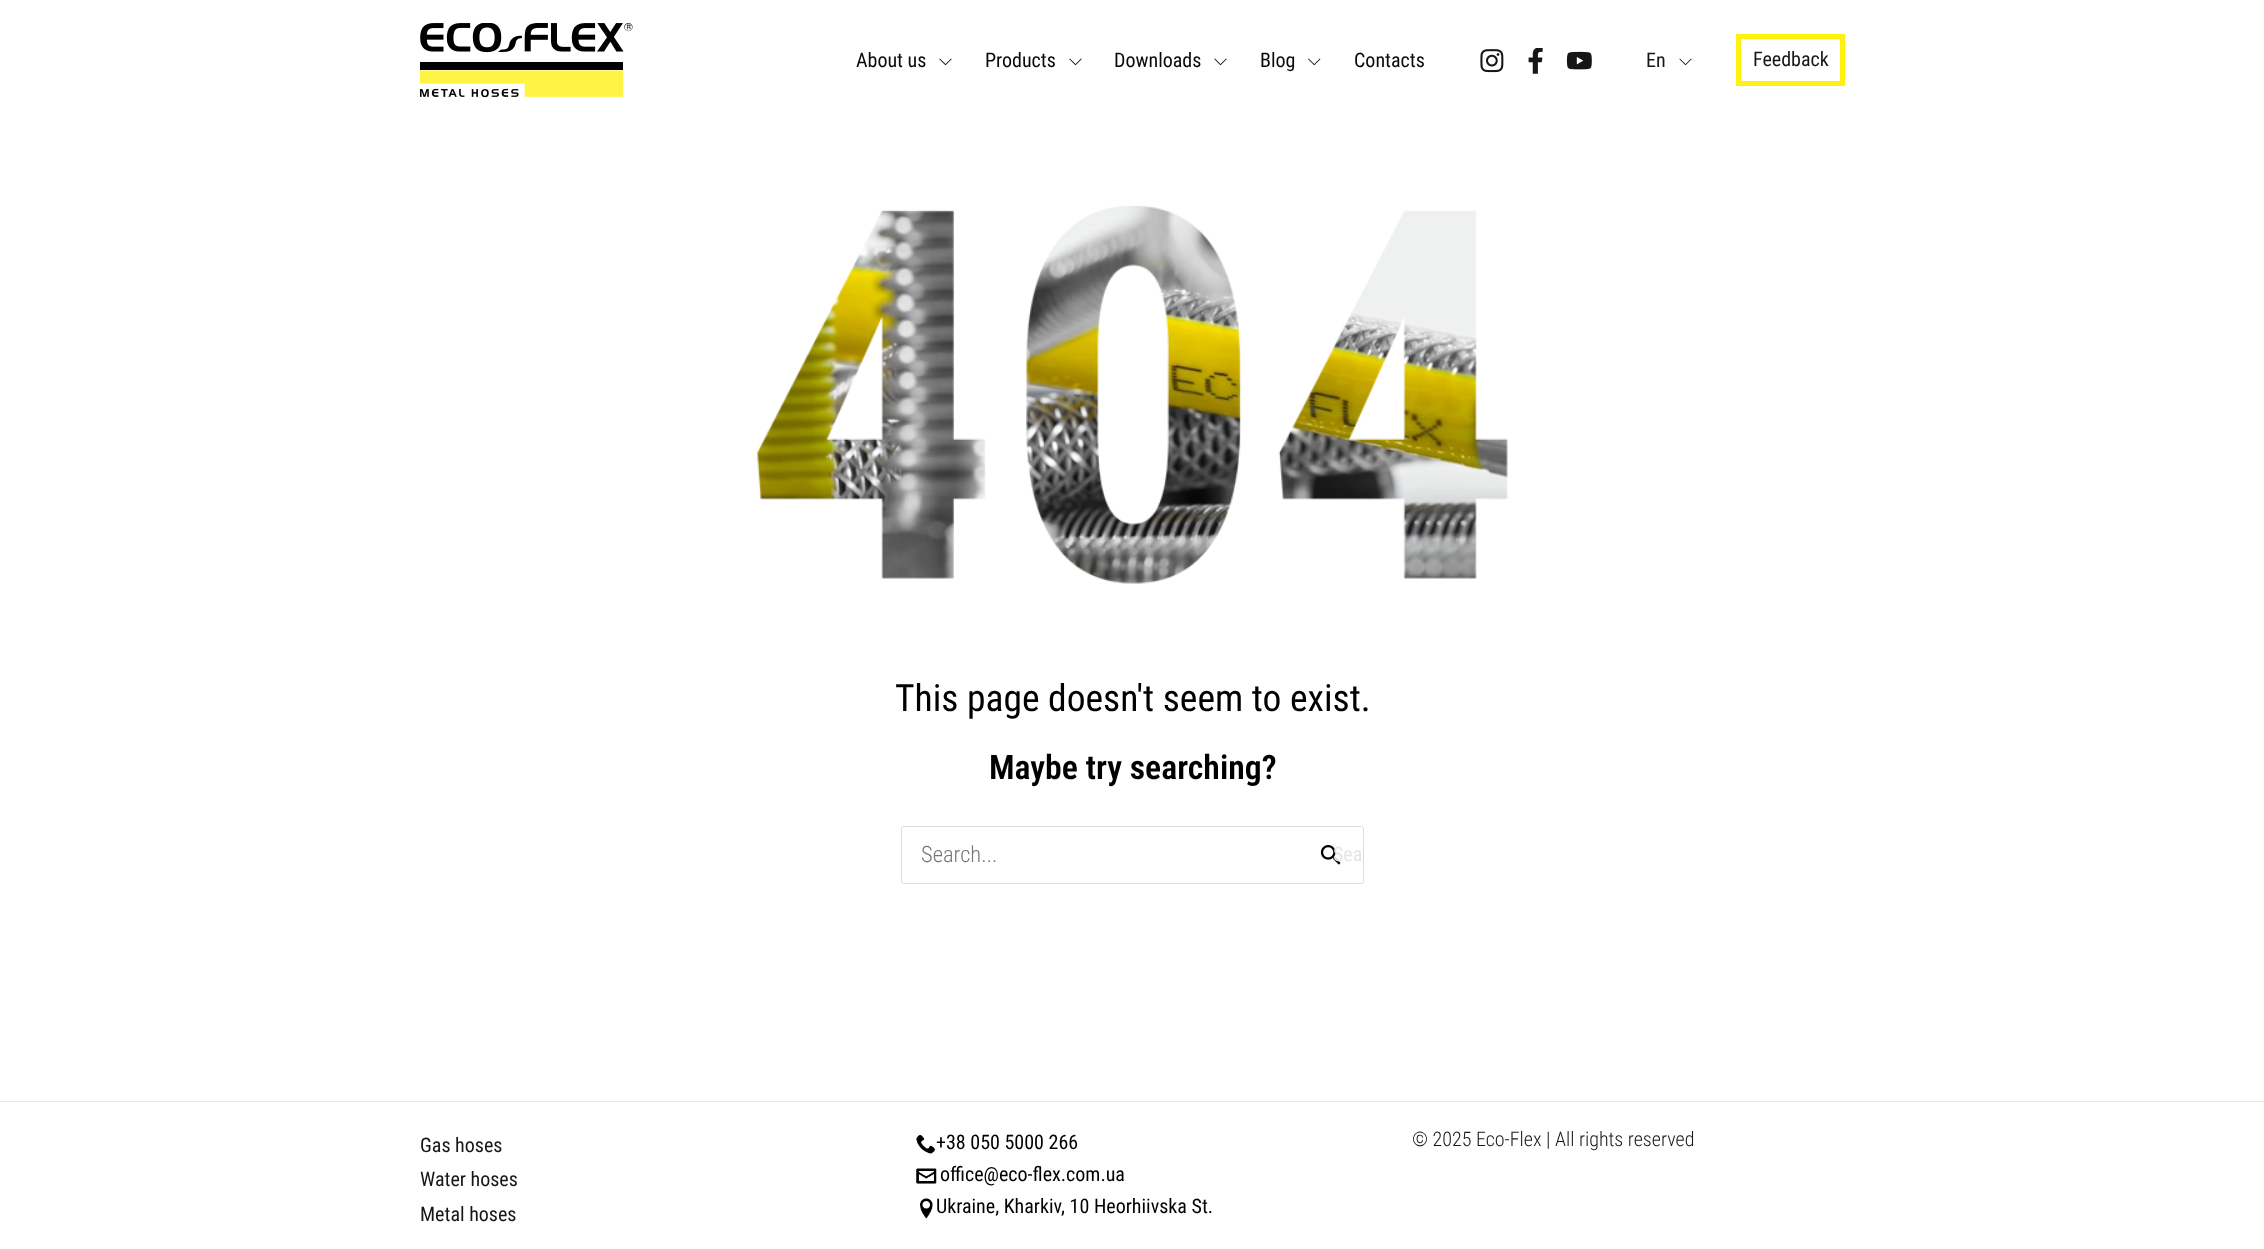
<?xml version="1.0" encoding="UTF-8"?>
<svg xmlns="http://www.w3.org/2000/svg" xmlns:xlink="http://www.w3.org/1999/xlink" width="2264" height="1249">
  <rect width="100%" height="100%" fill="#ffffff" />
  <image x="420" y="23" width="213" height="75" xlink:href="image1.png" />
  <image x="939" y="58" width="13" height="8" xlink:href="image2.png" />
  <image x="1069" y="58" width="13" height="8" xlink:href="image2.png" />
  <image x="1214" y="58" width="13" height="8" xlink:href="image2.png" />
  <image x="1308" y="58" width="13" height="8" xlink:href="image3.png" />
  <image x="1480" y="49" width="24" height="24" xlink:href="image4.png" />
  <image x="1528" y="48" width="15" height="26" xlink:href="image5.png" />
  <image x="1566" y="51" width="26" height="19" xlink:href="image6.png" />
  <image x="1679" y="58" width="13" height="8" xlink:href="image7.png" />
  <rect x="1738.5" y="36.5" width="104" height="47" fill="none" stroke="#fff00f" stroke-width="5" />
  <image x="757" y="206" width="751" height="378" xlink:href="image8.png" />
  <rect x="901.5" y="826.5" width="462" height="57" rx="2" fill="none" stroke="#dddddd" />
  <image x="1320" y="845" width="21" height="20" xlink:href="image9.png" />
  <rect y="1101" width="2264" height="1" fill="#e6e6e6" />
  <image x="916" y="1134" width="19" height="20" xlink:href="image10.png" />
  <image x="916" y="1168" width="21" height="16" xlink:href="image11.png" />
  <image x="920" y="1198" width="13" height="21" xlink:href="image12.png" />
  <text x="856" y="67" style="font-family: Roboto Condensed; font-size: 20px; fill: #090909">About us</text>
  <text x="985" y="67" style="font-family: Roboto Condensed; font-size: 20px; fill: #090909">Products</text>
  <text x="1114" y="67" style="font-family: Roboto Condensed; font-size: 20px; fill: #090909">Downloads</text>
  <text x="1260" y="67" style="font-family: Roboto Condensed; font-size: 20px; fill: #090909">Blog</text>
  <text x="1354" y="67" style="font-family: Roboto Condensed; font-size: 20px; fill: #090909">Contacts</text>
  <text x="1646" y="67" style="font-family: Roboto Condensed; font-size: 20px; fill: #151616">En</text>
  <text x="1753" y="66" style="font-family: Roboto Condensed; font-size: 20px; fill: #151616">Feedback</text>
  <text x="895" y="711" style="font-family: Roboto Condensed; font-size: 37.5px; fill: #000000">This page doesn't seem to exist.</text>
  <text x="989" y="779" style="font-family: Roboto Condensed; font-size: 33.75px; font-weight: 600; fill: #000000">Maybe try searching?</text>
  <text x="921" y="862" style="font-family: Roboto Condensed; font-size: 22.5px; font-weight: 300; fill: #757575">Search...</text>
  <text x="1333" y="861" style="font-family: Roboto Condensed; font-size: 20px; fill: #e5e5e5">Sea</text>
  <text x="420" y="1152" style="font-family: Roboto Condensed; font-size: 20px; fill: #151616">Gas hoses</text>
  <text x="420" y="1186" style="font-family: Roboto Condensed; font-size: 20px; fill: #151616">Water hoses</text>
  <text x="420" y="1221" style="font-family: Roboto Condensed; font-size: 20px; fill: #151616">Metal hoses</text>
  <text x="936" y="1149" style="font-family: Roboto Condensed; font-size: 20px; fill: #000000">+38 050 5000 266</text>
  <text x="940" y="1181" style="font-family: Roboto Condensed; font-size: 20px; fill: #000000">office@eco-flex.com.ua</text>
  <text x="936" y="1213" style="font-family: Roboto Condensed; font-size: 20px; fill: #000000">Ukraine, Kharkiv, 10 Heorhiivska St.</text>
  <text x="1412" y="1146" style="font-family: Roboto Condensed; font-size: 20px; font-weight: 300; fill: #151616">© 2025 Eco-Flex | All rights reserved</text>
</svg>
